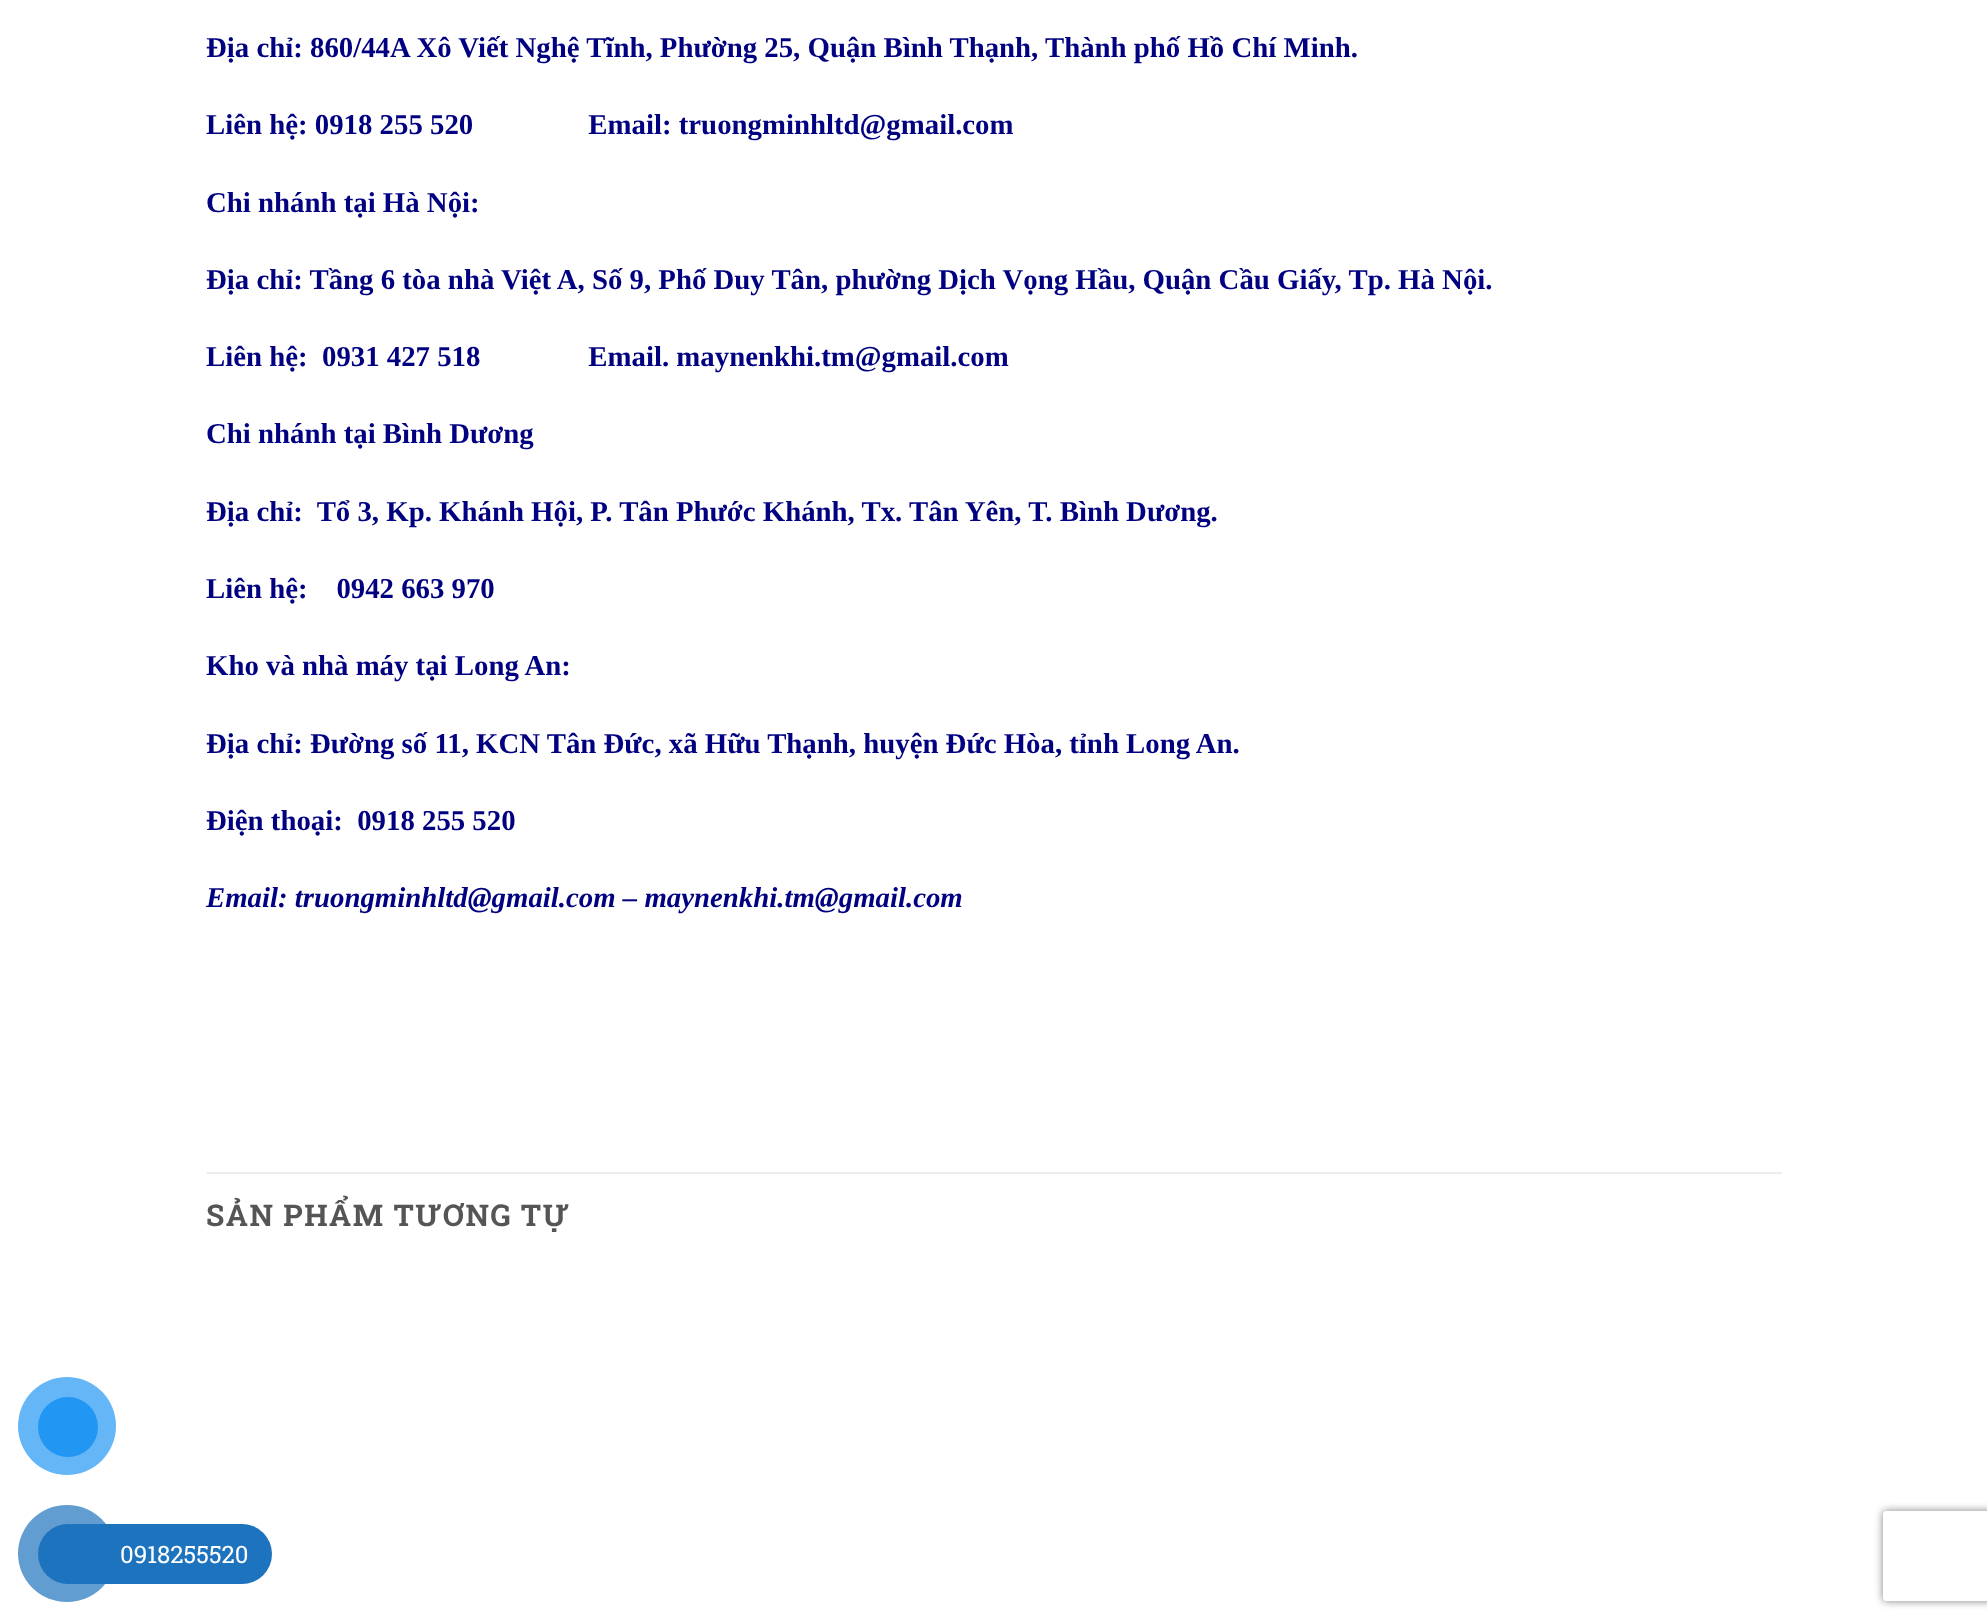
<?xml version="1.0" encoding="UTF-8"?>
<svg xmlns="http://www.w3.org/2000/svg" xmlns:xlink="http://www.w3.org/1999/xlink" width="1987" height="1621">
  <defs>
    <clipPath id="clip1"><path d="M 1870 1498 h 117 v 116 h -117 z m 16 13 h 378 c 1.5 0 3 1.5 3 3 v 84 c 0 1.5 -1.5 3 -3 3 h -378 c -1.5 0 -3 -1.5 -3 -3 v -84 c 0 -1.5 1.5 -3 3 -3 z" clip-rule="evenodd" /></clipPath>
  </defs>
  <rect width="100%" height="100%" fill="#ffffff" />
  <rect x="207" y="1172" width="1575" height="2" fill="#ececec" />
  <circle cx="67" cy="1426" r="49" fill="#64b6f7" />
  <circle cx="68" cy="1427" r="30" fill="#2196f3" />
  <rect x="45" y="1524" width="227" height="60" rx="30" fill="#1e73be" />
  <rect x="18" y="1505" width="98" height="97" rx="48.5" fill="#1e73be" fill-opacity="0.7" />
  <circle cx="68" cy="1554" r="30" fill="#1e73be" />
  <g clip-path="url(#clip1)">
    <rect x="1883" y="1511" width="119" height="90" rx="3" fill="#808080" filter="blur(4px)" />
  </g>
  <text x="206" y="57" style="font-family: Liberation Serif; font-size: 28.8px; font-weight: bold; fill: #000080">Địa chỉ: 860/44A Xô Viết Nghệ Tĩnh, Phường 25, Quận Bình Thạnh, Thành phố Hồ Chí Minh.</text>
  <text x="206" y="134" style="font-family: Liberation Serif; font-size: 28.8px; font-weight: bold; fill: #000080" xml:space="preserve">Liên hệ: 0918 255 520                Email: truongminhltd@gmail.com</text>
  <text x="206" y="212" style="font-family: Liberation Serif; font-size: 28.8px; font-weight: bold; fill: #000080">Chi nhánh tại Hà Nội:</text>
  <text x="206" y="289" style="font-family: Liberation Serif; font-size: 28.8px; font-weight: bold; fill: #000080">Địa chỉ: Tầng 6 tòa nhà Việt A, Số 9, Phố Duy Tân, phường Dịch Vọng Hầu, Quận Cầu Giấy, Tp. Hà Nội.</text>
  <text x="206" y="366" style="font-family: Liberation Serif; font-size: 28.8px; font-weight: bold; fill: #000080" xml:space="preserve">Liên hệ:  0931 427 518               Email. maynenkhi.tm@gmail.com</text>
  <text x="206" y="443" style="font-family: Liberation Serif; font-size: 28.8px; font-weight: bold; fill: #000080">Chi nhánh tại Bình Dương</text>
  <text x="206" y="521" style="font-family: Liberation Serif; font-size: 28.8px; font-weight: bold; fill: #000080" xml:space="preserve">Địa chỉ:  Tổ 3, Kp. Khánh Hội, P. Tân Phước Khánh, Tx. Tân Yên, T. Bình Dương.</text>
  <text x="206" y="598" style="font-family: Liberation Serif; font-size: 28.8px; font-weight: bold; fill: #000080" xml:space="preserve">Liên hệ:    0942 663 970</text>
  <text x="206" y="675" style="font-family: Liberation Serif; font-size: 28.8px; font-weight: bold; fill: #000080">Kho và nhà máy tại Long An:</text>
  <text x="206" y="753" style="font-family: Liberation Serif; font-size: 28.8px; font-weight: bold; fill: #000080">Địa chỉ: Đường số 11, KCN Tân Đức, xã Hữu Thạnh, huyện Đức Hòa, tỉnh Long An.</text>
  <text x="206" y="830" style="font-family: Liberation Serif; font-size: 28.8px; font-weight: bold; fill: #000080" xml:space="preserve">Điện thoại:  0918 255 520</text>
  <text x="206" y="907" style="font-family: Liberation Serif; font-size: 28.8px; font-weight: bold; font-style: italic; fill: #000080">Email: truongminhltd@gmail.com – maynenkhi.tm@gmail.com</text>
  <text x="206" y="1226" style="font-family: Roboto Slab; font-size: 30px; font-weight: bold; letter-spacing: 1.5px; fill: #555555">SẢN PHẨM TƯƠNG TỰ</text>
  <text x="120" y="1563" style="font-family: Roboto Slab; font-size: 24px; fill: #ffffff">0918255520</text>
</svg>
